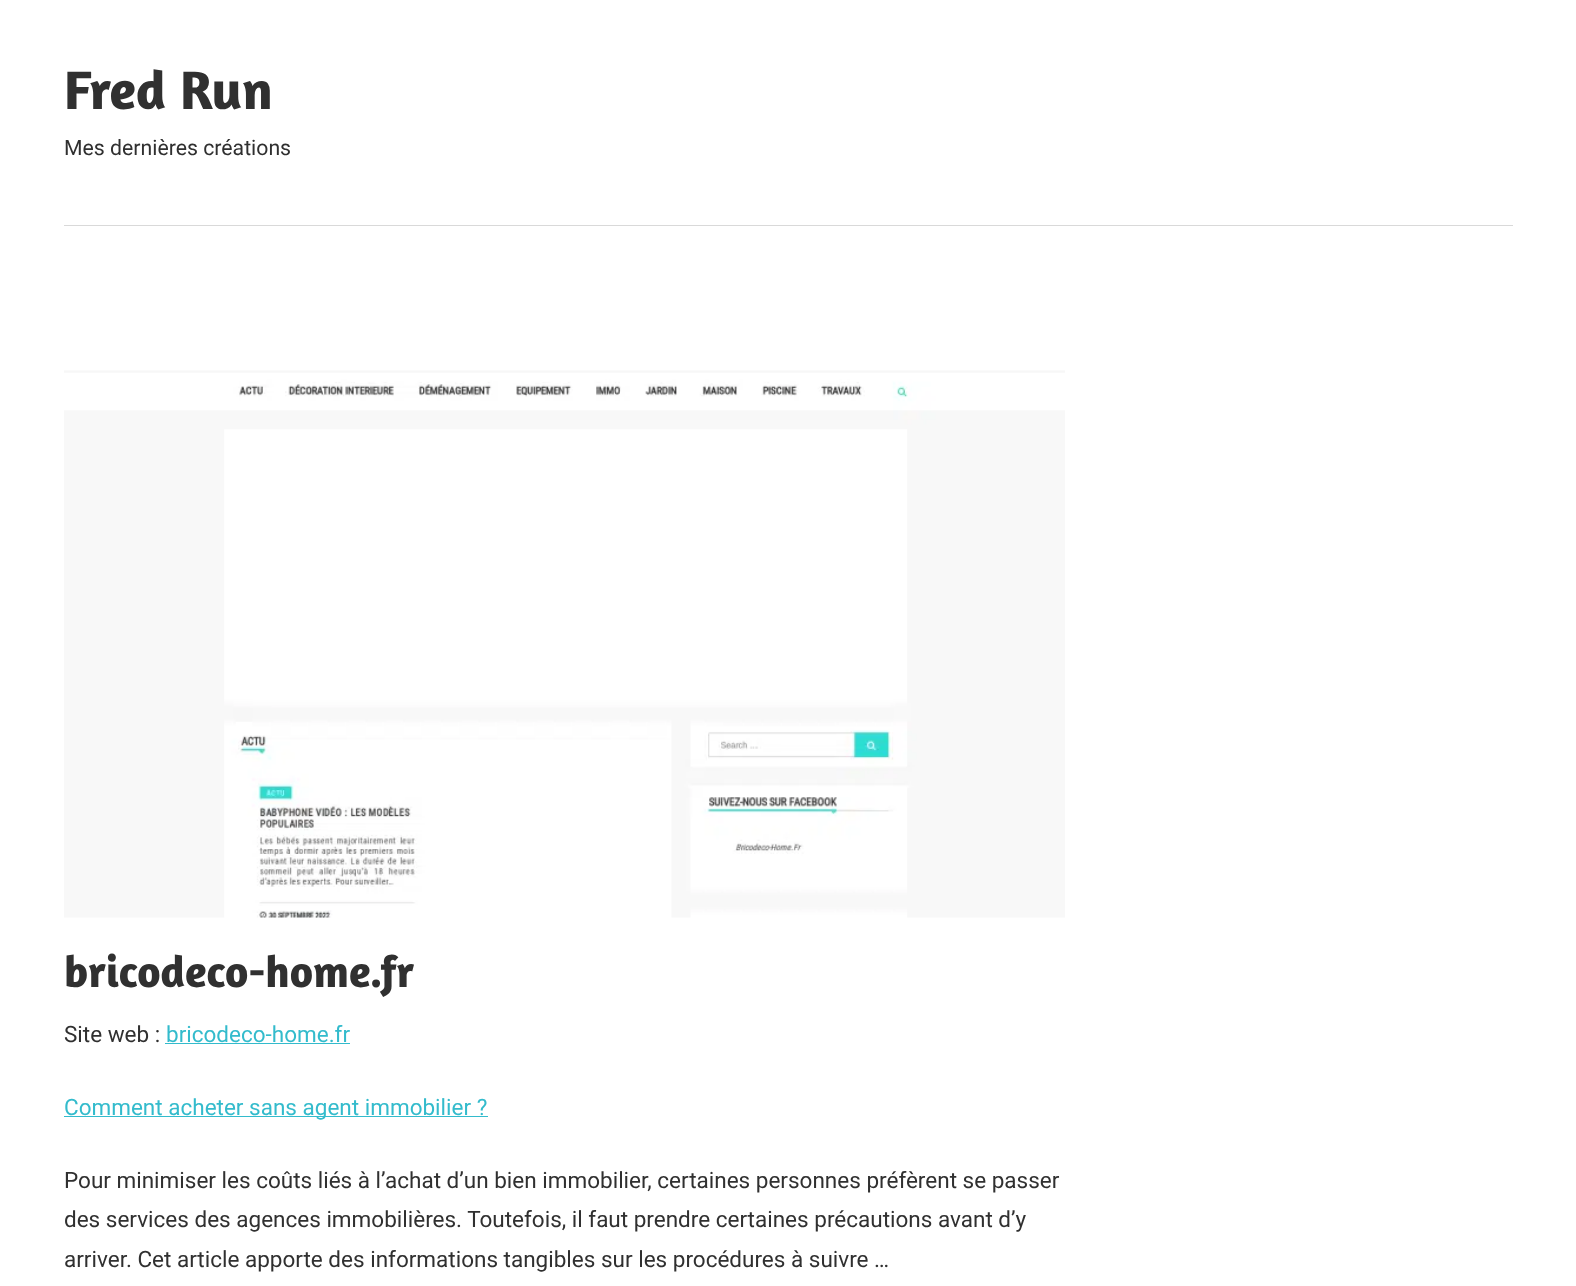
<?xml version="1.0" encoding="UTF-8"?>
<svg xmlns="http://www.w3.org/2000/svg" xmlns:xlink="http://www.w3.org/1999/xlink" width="1576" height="1286">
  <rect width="100%" height="100%" fill="#ffffff" />
  <rect x="64" y="225" width="1449" height="1" fill="#d9d9d9" />
  <image x="64" y="370" width="1001" height="548" xlink:href="image1.png" />
  <rect x="165" y="1043" width="185" height="1" fill="#33bbcc" />
  <rect x="64" y="1116" width="424" height="1" fill="#33bbcc" />
  <text x="64" y="109" style="font-family: Amaranth; font-size: 55px; font-weight: bold; fill: #303030">Fred Run</text>
  <text x="64" y="155" style="font-family: Roboto; font-size: 21.25px; fill: #303030">Mes dernières créations</text>
  <text x="64" y="987" style="font-family: Amaranth; font-size: 45px; font-weight: bold; fill: #303030">bricodeco-home.fr</text>
  <text x="64" y="1042" style="font-family: Roboto; font-size: 22.5px; fill: #303030">Site web :</text>
  <text x="166" y="1042" style="font-family: Roboto; font-size: 22.5px; fill: #33bbcc">bricodeco-home.fr</text>
  <text x="64" y="1115" style="font-family: Roboto; font-size: 22.5px; fill: #33bbcc">Comment acheter sans agent immobilier ?</text>
  <text x="64" y="1188" style="font-family: Roboto; font-size: 22.5px; fill: #303030">Pour minimiser les coûts liés à l’achat d’un bien immobilier, certaines personnes préfèrent se passer</text>
  <text x="64" y="1227" style="font-family: Roboto; font-size: 22.5px; fill: #303030">des services des agences immobilières. Toutefois, il faut prendre certaines précautions avant d’y</text>
  <text x="64" y="1267" style="font-family: Roboto; font-size: 22.5px; fill: #303030">arriver. Cet article apporte des informations tangibles sur les procédures à suivre …</text>
</svg>
